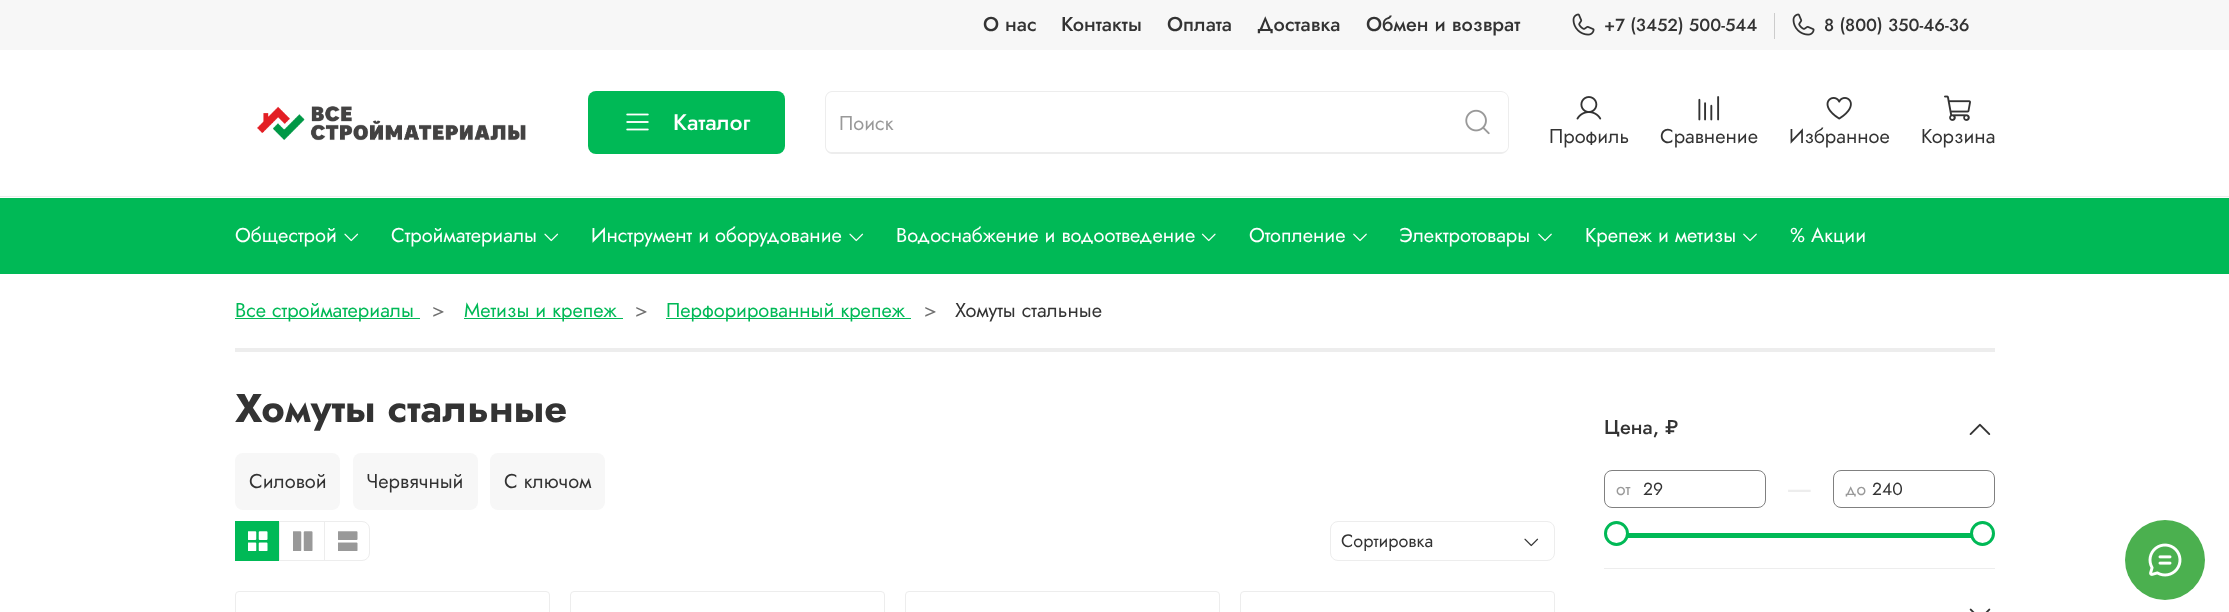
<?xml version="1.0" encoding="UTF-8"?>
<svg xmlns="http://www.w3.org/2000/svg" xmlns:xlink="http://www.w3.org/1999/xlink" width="2229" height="612">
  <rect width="100%" height="100%" fill="#ffffff" />
  <rect width="2229" height="50" fill="#f7f7f7" />
  <rect x="1774" y="13" width="1" height="26" fill="#cccccc" />
  <image x="1572" y="13" width="23" height="23" xlink:href="image1.png" />
  <image x="1792" y="13" width="23" height="23" xlink:href="image1.png" />
  <rect y="196" width="2229" height="1" fill="#ededed" />
  <image x="257" y="106" width="269" height="35" xlink:href="image2.png" />
  <rect x="588" y="91" width="197" height="63" rx="8" fill="#00b956" />
  <image x="626" y="113" width="23" height="18" xlink:href="image3.png" />
  <path d="M 832 91 h 614 v 63 h -614 c -4 0 -7 -4 -7 -8 v -47 c 0 -4 3 -8 7 -8 z m 0 1 h 614 v 60 h -614 c -3 0 -6 -2 -6 -6 v -47 c 0 -4 3 -7 6 -7 z" fill="#ededed" fill-rule="evenodd" />
  <path d="M 1446 91 h 55 c 4 0 8 4 8 8 v 47 c 0 4 -4 8 -8 8 h -55 z m 0 1 h 55 c 4 0 7 3 7 7 v 47 c 0 4 -3 6 -7 6 h -55 z" fill="#ededed" fill-rule="evenodd" />
  <image x="1465" y="109" width="25" height="26" xlink:href="image4.png" />
  <image x="1576" y="96" width="26" height="24" xlink:href="image5.png" />
  <image x="1698" y="96" width="22" height="25" xlink:href="image6.png" />
  <image x="1826" y="97" width="26" height="23" xlink:href="image7.png" />
  <image x="1944" y="95" width="27" height="26" xlink:href="image8.png" />
  <rect y="198" width="2229" height="76" fill="#00b956" />
  <image x="344" y="233" width="15" height="9" xlink:href="image9.png" />
  <image x="544" y="233" width="15" height="9" xlink:href="image9.png" />
  <image x="849" y="233" width="15" height="9" xlink:href="image9.png" />
  <image x="1201" y="233" width="15" height="9" xlink:href="image10.png" />
  <image x="1353" y="233" width="14" height="9" xlink:href="image11.png" />
  <image x="1538" y="233" width="14" height="9" xlink:href="image11.png" />
  <image x="1743" y="233" width="14" height="9" xlink:href="image11.png" />
  <rect x="235" y="318" width="185" height="1" fill="#00b956" />
  <rect x="464" y="318" width="152" height="1" fill="#00b956" />
  <rect x="616" y="318" width="7" height="1" fill="#00b956" />
  <rect x="666" y="318" width="239" height="1" fill="#00b956" />
  <rect x="905" y="318" width="6" height="1" fill="#00b956" />
  <rect x="235" y="348" width="1760" height="4" fill="#ededed" />
  <rect x="235" y="453" width="105" height="57" rx="8" fill="#f7f7f7" />
  <rect x="353" y="453" width="125" height="57" rx="8" fill="#f7f7f7" />
  <rect x="490" y="453" width="115" height="57" rx="8" fill="#f7f7f7" />
  <rect x="235.5" y="521.5" width="134" height="39" rx="7.5" fill="none" stroke="#ededed" />
  <rect x="235" y="521" width="44" height="40" fill="#00b956" />
  <rect x="279" y="521" width="1" height="40" fill="#ededed" />
  <image x="248" y="531" width="20" height="20" xlink:href="image12.png" />
  <rect x="324" y="521" width="1" height="40" fill="#ededed" />
  <image x="293" y="531" width="20" height="20" xlink:href="image13.png" />
  <image x="338" y="531" width="20" height="20" xlink:href="image14.png" />
  <rect x="1330.5" y="521.5" width="224" height="39" rx="7.5" fill="none" stroke="#ededed" />
  <image x="1524" y="538" width="15" height="9" xlink:href="image15.png" />
  <rect x="235.5" y="591.5" width="314" height="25" rx="3.5" fill="none" stroke="#ededed" />
  <rect x="570.5" y="591.5" width="314" height="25" rx="3.5" fill="none" stroke="#ededed" />
  <rect x="905.5" y="591.5" width="314" height="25" rx="3.5" fill="none" stroke="#ededed" />
  <rect x="1240.5" y="591.5" width="314" height="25" rx="3.5" fill="none" stroke="#ededed" />
  <rect x="1604" y="568" width="391" height="1" fill="#ededed" />
  <image x="1969" y="423" width="22" height="12" xlink:href="image16.png" />
  <rect x="1604.5" y="470.5" width="161" height="37" rx="7.5" fill="none" stroke="#808080" />
  <rect x="1833.5" y="470.5" width="161" height="37" rx="7.5" fill="none" stroke="#808080" />
  <rect x="1628" y="533" width="343" height="5" fill="#00b956" />
  <circle cx="1616.5" cy="533.5" r="11" fill="#ffffff" stroke="#00b956" stroke-width="3" />
  <circle cx="1982.5" cy="533.5" r="11" fill="#ffffff" stroke="#00b956" stroke-width="3" />
  <image x="1969" y="608" width="22" height="4" xlink:href="image17.png" />
  <circle cx="2165" cy="560" r="40" fill="#4bb04f" />
  <image x="2148" y="543" width="34" height="34" xlink:href="image18.png" />
  <text x="983" y="31" style="font-family: Jost; font-size: 20px; font-weight: 500; fill: #333333">О нас</text>
  <text x="1061" y="31" style="font-family: Jost; font-size: 20px; font-weight: 500; fill: #333333">Контакты</text>
  <text x="1167" y="31" style="font-family: Jost; font-size: 20px; font-weight: 500; fill: #333333">Оплата</text>
  <text x="1257" y="31" style="font-family: Jost; font-size: 20px; font-weight: 500; fill: #333333">Доставка</text>
  <text x="1366" y="31" style="font-family: Jost; font-size: 20px; font-weight: 500; fill: #333333">Обмен и возврат</text>
  <text x="1604" y="31" style="font-family: Jost; font-size: 17.5px; font-weight: 500; fill: #333333">+7 (3452) 500-544</text>
  <text x="1824" y="31" style="font-family: Jost; font-size: 17.5px; font-weight: 500; fill: #333333">8 (800) 350-46-36</text>
  <text x="673" y="130" style="font-family: Jost; font-size: 22.5px; font-weight: 500; fill: #ffffff">Каталог</text>
  <text x="839" y="130" style="font-family: Jost; font-size: 20px; fill: #999999">Поиск</text>
  <text x="1549" y="143" style="font-family: Jost; font-size: 20px; fill: #333333">Профиль</text>
  <text x="1660" y="143" style="font-family: Jost; font-size: 20px; fill: #333333">Сравнение</text>
  <text x="1789" y="143" style="font-family: Jost; font-size: 20px; fill: #333333">Избранное</text>
  <text x="1921" y="143" style="font-family: Jost; font-size: 20px; fill: #333333">Корзина</text>
  <text x="235" y="242" style="font-family: Jost; font-size: 20px; fill: #ffffff">Общестрой</text>
  <text x="391" y="242" style="font-family: Jost; font-size: 20px; fill: #ffffff">Стройматериалы</text>
  <text x="591" y="242" style="font-family: Jost; font-size: 20px; fill: #ffffff">Инструмент и оборудование</text>
  <text x="896" y="242" style="font-family: Jost; font-size: 20px; fill: #ffffff">Водоснабжение и водоотведение</text>
  <text x="1249" y="242" style="font-family: Jost; font-size: 20px; fill: #ffffff">Отопление</text>
  <text x="1399" y="242" style="font-family: Jost; font-size: 20px; fill: #ffffff">Электротовары</text>
  <text x="1585" y="242" style="font-family: Jost; font-size: 20px; fill: #ffffff">Крепеж и метизы</text>
  <text x="1790" y="242" style="font-family: Jost; font-size: 20px; fill: #ffffff">% Акции</text>
  <text x="235" y="317" style="font-family: Jost; font-size: 20px; fill: #00b956">Все стройматериалы</text>
  <text x="432" y="317" style="font-family: Jost; font-size: 20px; fill: #707070">&gt;</text>
  <text x="464" y="317" style="font-family: Jost; font-size: 20px; fill: #00b956">Метизы и крепеж</text>
  <text x="635" y="317" style="font-family: Jost; font-size: 20px; fill: #707070">&gt;</text>
  <text x="666" y="317" style="font-family: Jost; font-size: 20px; fill: #00b956">Перфорированный крепеж</text>
  <text x="924" y="317" style="font-family: Jost; font-size: 20px; fill: #707070">&gt;</text>
  <text x="955" y="317" style="font-family: Jost; font-size: 20px; fill: #333333">Хомуты стальные</text>
  <text x="235" y="422" style="font-family: Jost; font-size: 40px; font-weight: bold; fill: #333333">Хомуты стальные</text>
  <text x="249" y="488" style="font-family: Jost; font-size: 20px; fill: #333333">Силовой</text>
  <text x="366" y="488" style="font-family: Jost; font-size: 20px; fill: #333333">Червячный</text>
  <text x="504" y="488" style="font-family: Jost; font-size: 20px; fill: #333333">С ключом</text>
  <text x="1341" y="547" style="font-family: Jost; font-size: 18px; fill: #333333">Сортировка</text>
  <text x="1604" y="434" style="font-family: Jost; font-size: 20px; font-weight: 500; fill: #333333">Цена, ₽</text>
  <text x="1616" y="495" style="font-family: Jost; font-size: 17.5px; fill: #999999">от</text>
  <text x="1643" y="495" style="font-family: Jost; font-size: 17.5px; fill: #333333">29</text>
  <text x="1786" y="498" style="font-family: Jost; font-size: 30px; fill: #ededed">—</text>
  <text x="1845" y="495" style="font-family: Jost; font-size: 17.5px; fill: #999999">до</text>
  <text x="1872" y="495" style="font-family: Jost; font-size: 17.5px; fill: #333333">240</text>
</svg>
